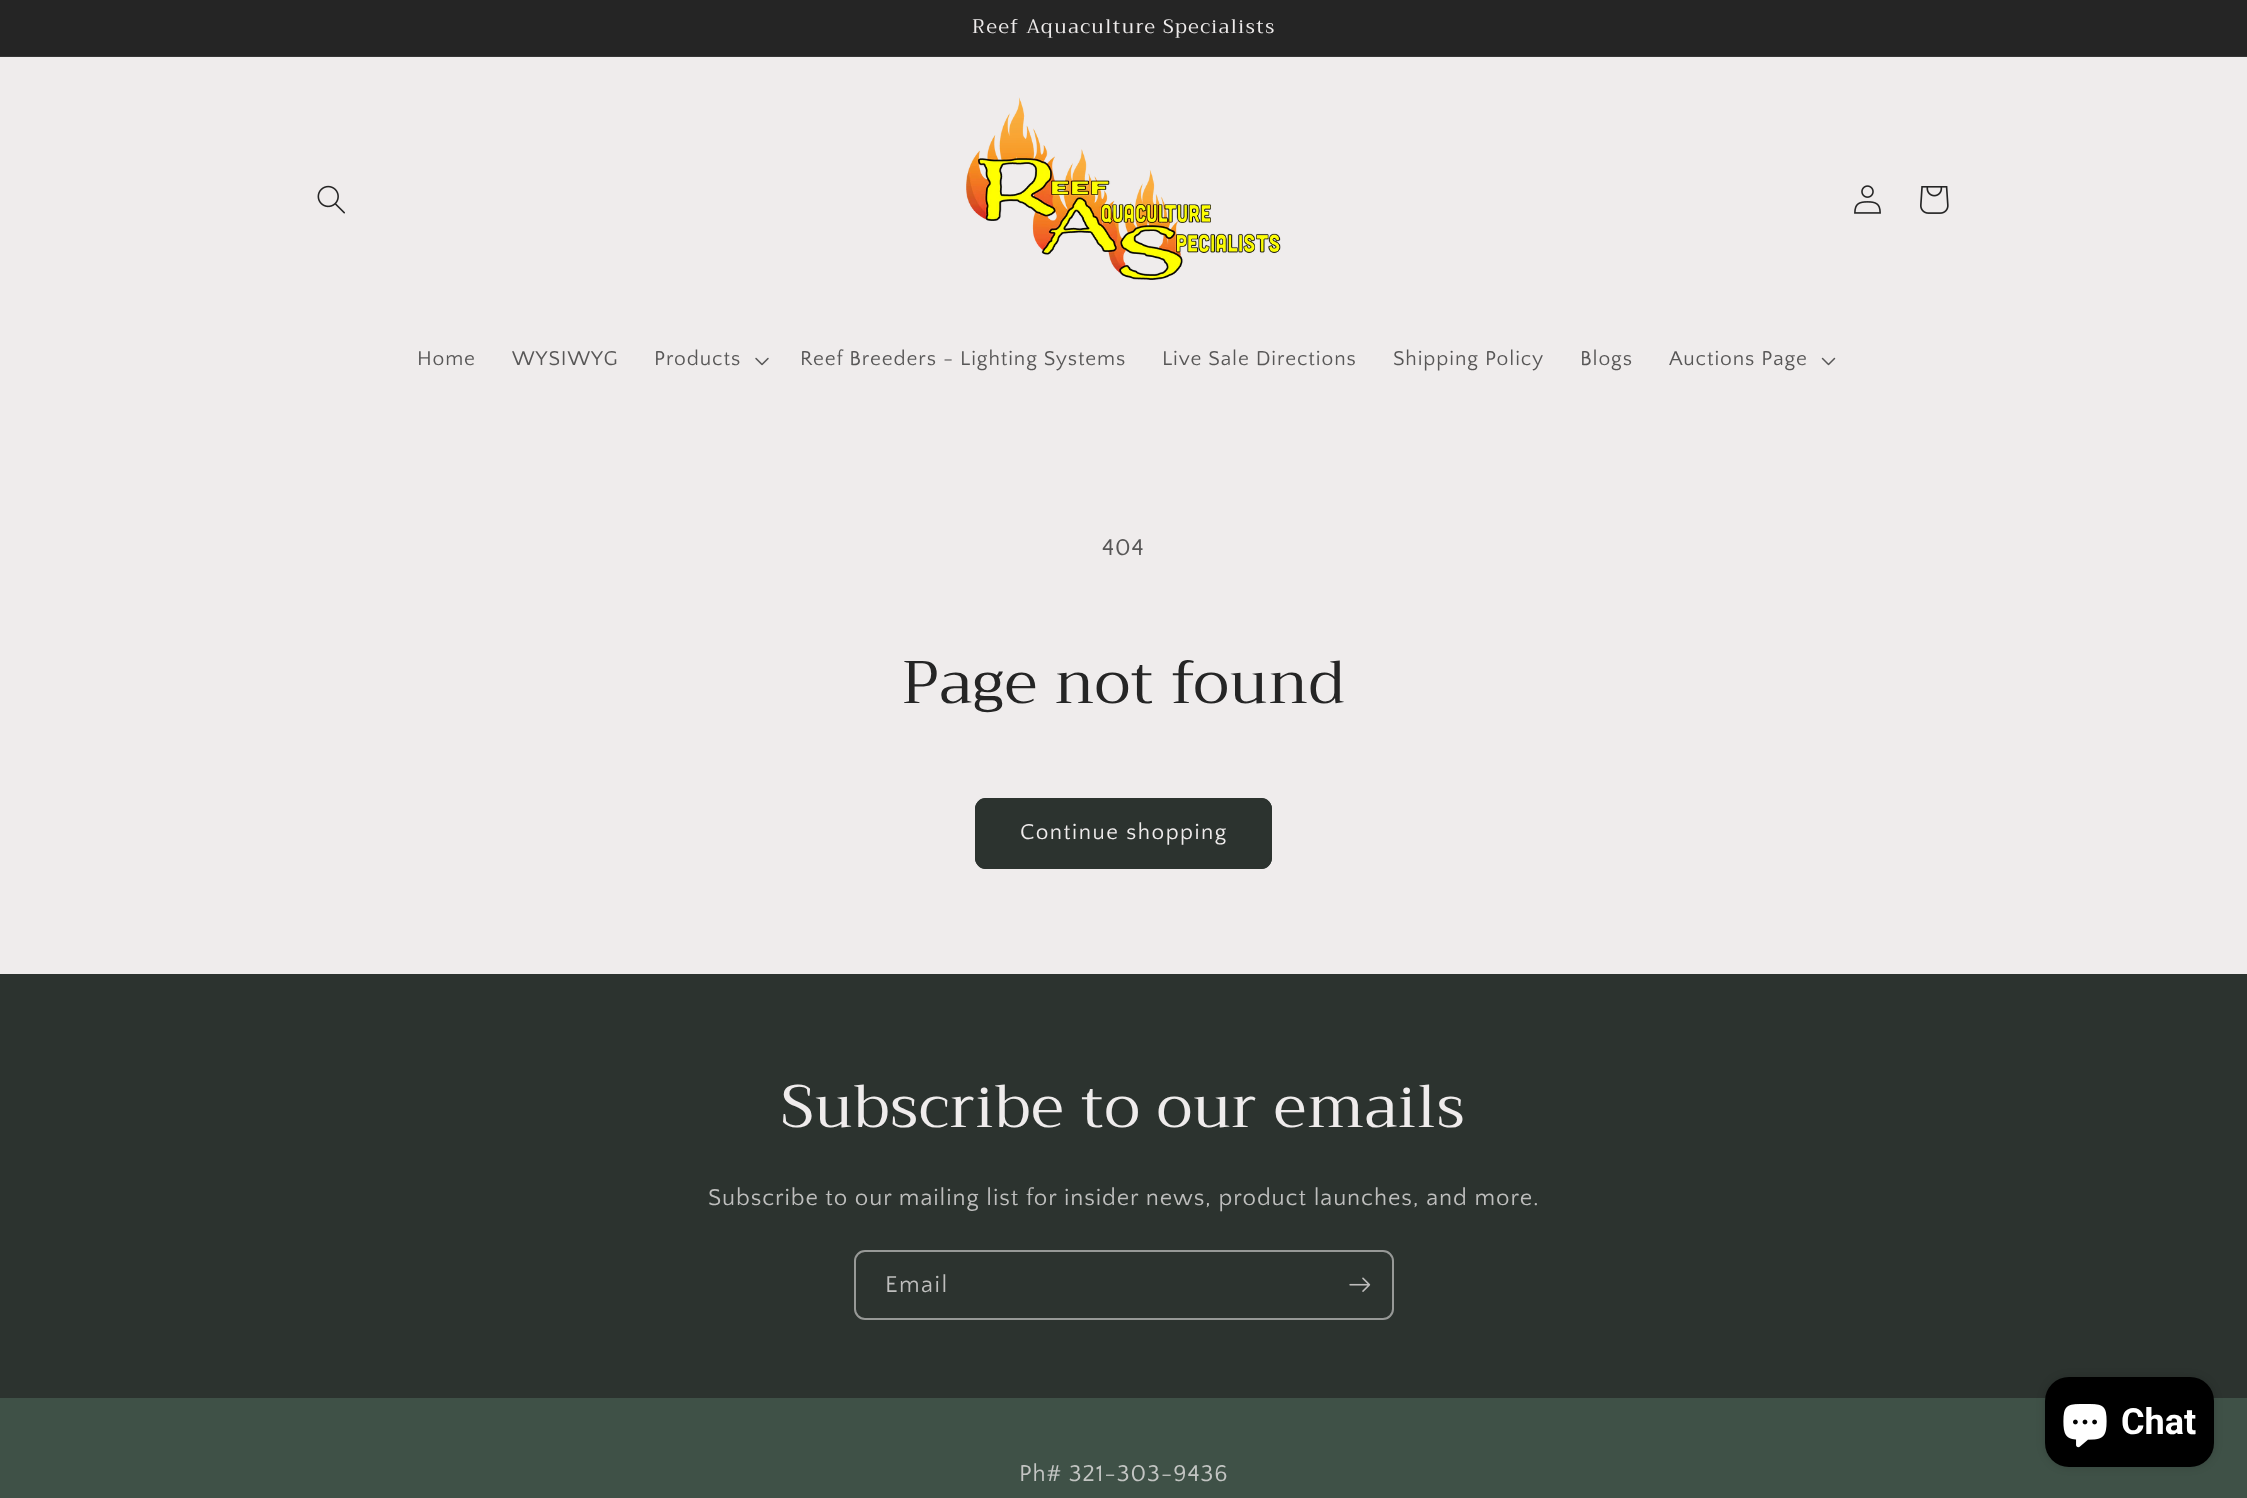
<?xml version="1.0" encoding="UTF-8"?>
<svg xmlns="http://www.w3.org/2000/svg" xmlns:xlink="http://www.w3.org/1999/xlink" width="2247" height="1498">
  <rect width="100%" height="100%" fill="#efecec" />
  <rect width="2247" height="56" fill="#252525" />
  <rect y="56" width="2247" height="1" fill="#353535" />
  <image x="317" y="185" width="28" height="29" xlink:href="image1.png" />
  <image x="966" y="97" width="315" height="183" xlink:href="image2.png" />
  <image x="1854" y="185" width="27" height="29" xlink:href="image3.png" />
  <image x="1920" y="186" width="29" height="28" xlink:href="image4.png" />
  <image x="755" y="357" width="14" height="9" xlink:href="image5.png" />
  <image x="1821" y="357" width="15" height="9" xlink:href="image6.png" />
  <rect x="975" y="798" width="297" height="71" rx="11" fill="#2c332f" />
  <rect x="976" y="799" width="295" height="69" rx="10" fill="none" stroke="#2c332f" stroke-width="2" />
  <rect y="974" width="2247" height="424" fill="#2c332f" />
  <rect x="855" y="1251" width="538" height="68" rx="10" fill="none" stroke="#979997" stroke-width="2" />
  <image x="1349" y="1277" width="22" height="15" xlink:href="image7.png" />
  <rect y="1398" width="2247" height="100" fill="#3f5147" />
  <rect x="2045" y="1377" width="169" height="90" rx="24" fill="#000000" fill-opacity="0.15" filter="blur(4px)" />
  <rect x="2045" y="1377" width="169" height="90" rx="24" fill="#000000" />
  <image x="2063" y="1404" width="44" height="44" xlink:href="image8.png" />
  <text x="972" y="33" style="font-family: Trirong; font-size: 19.5px; letter-spacing: 1.5px; fill: #efecec">Reef Aquaculture Specialists</text>
  <text x="417" y="365" style="font-family: Quattrocento Sans; font-size: 21px; letter-spacing: 0.9px; fill: #585757">Home</text>
  <text x="512" y="365" style="font-family: Quattrocento Sans; font-size: 21px; letter-spacing: 0.9px; fill: #585757">WYSIWYG</text>
  <text x="654" y="365" style="font-family: Quattrocento Sans; font-size: 21px; letter-spacing: 0.9px; fill: #585757">Products</text>
  <text x="800" y="365" style="font-family: Quattrocento Sans; font-size: 21px; letter-spacing: 0.9px; fill: #585757">Reef Breeders - Lighting Systems</text>
  <text x="1162" y="365" style="font-family: Quattrocento Sans; font-size: 21px; letter-spacing: 0.9px; fill: #585757">Live Sale Directions</text>
  <text x="1393" y="365" style="font-family: Quattrocento Sans; font-size: 21px; letter-spacing: 0.9px; fill: #585757">Shipping Policy</text>
  <text x="1580" y="365" style="font-family: Quattrocento Sans; font-size: 21px; letter-spacing: 0.9px; fill: #585757">Blogs</text>
  <text x="1669" y="365" style="font-family: Quattrocento Sans; font-size: 21px; letter-spacing: 0.9px; fill: #585757">Auctions Page</text>
  <text x="1102" y="555" style="font-family: Quattrocento Sans; font-size: 24px; letter-spacing: 0.9px; fill: #585757">404</text>
  <text x="902" y="703" style="font-family: Trirong; font-size: 60px; letter-spacing: 0.9px; fill: #252525">Page not found</text>
  <text x="1020" y="839" style="font-family: Quattrocento Sans; font-size: 22.5px; letter-spacing: 1.5px; fill: #efecec">Continue shopping</text>
  <text x="781" y="1127" style="font-family: Trirong; font-size: 60px; letter-spacing: 0.9px; fill: #efecec">Subscribe to our emails</text>
  <text x="708" y="1205" style="font-family: Quattrocento Sans; font-size: 24px; letter-spacing: 0.9px; fill: #bebebd">Subscribe to our mailing list for insider news, product launches, and more.</text>
  <text x="885" y="1292" style="font-family: Quattrocento Sans; font-size: 24px; letter-spacing: 1.5px; fill: #bebebd">Email</text>
  <text x="2121" y="1434" style="font-family: Roboto; font-size: 36px; font-weight: bold; fill: #ffffff">Chat</text>
  <text x="1019" y="1481" style="font-family: Quattrocento Sans; font-size: 24px; letter-spacing: 0.9px; fill: #c3c5c3">Ph# 321-303-9436</text>
</svg>
